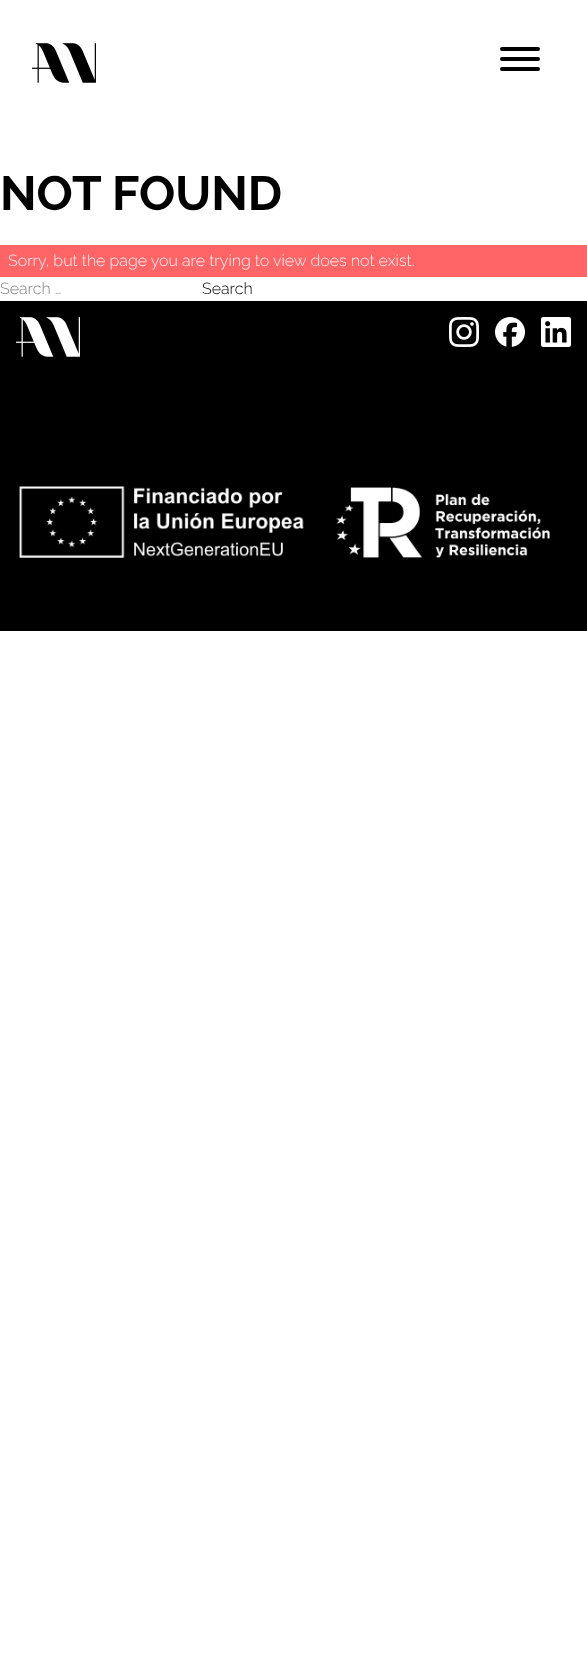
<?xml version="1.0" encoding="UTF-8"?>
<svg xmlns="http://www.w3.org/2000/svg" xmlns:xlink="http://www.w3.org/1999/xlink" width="587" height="1674">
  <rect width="100%" height="100%" fill="#ffffff" />
  <image x="32" y="43" width="64" height="40" xlink:href="image1.png" />
  <rect x="500" y="47" width="40" height="4" rx="2" fill="#000000" />
  <rect x="500" y="57" width="40" height="4" rx="2" fill="#000000" />
  <rect x="500" y="67" width="40" height="4" rx="2" fill="#000000" />
  <rect y="245" width="587" height="32" fill="#ff6467" />
  <rect y="301" width="587" height="330" fill="#000000" />
  <image x="16" y="317" width="64" height="40" xlink:href="image2.png" />
  <image x="449" y="317" width="30" height="30" xlink:href="image3.png" />
  <image x="495" y="317" width="30" height="30" xlink:href="image4.png" />
  <image x="541" y="317" width="30" height="30" xlink:href="image5.png" />
  <image x="19" y="486" width="531" height="72" xlink:href="image6.png" />
  <text x="0" y="210" style="font-family: Raleway; font-size: 48px; font-weight: bold; fill: #000000">NOT FOUND</text>
  <text x="8" y="266" style="font-family: Raleway; font-size: 16px; font-weight: 300; fill: #fef2f2">Sorry, but the page you are trying to view does not exist.</text>
  <text x="0" y="294" style="font-family: Raleway; font-size: 16px; font-weight: 300; fill: #808080">Search …</text>
  <text x="202" y="294" style="font-family: Raleway; font-size: 16px; font-weight: 300; fill: #000000">Search</text>
</svg>
